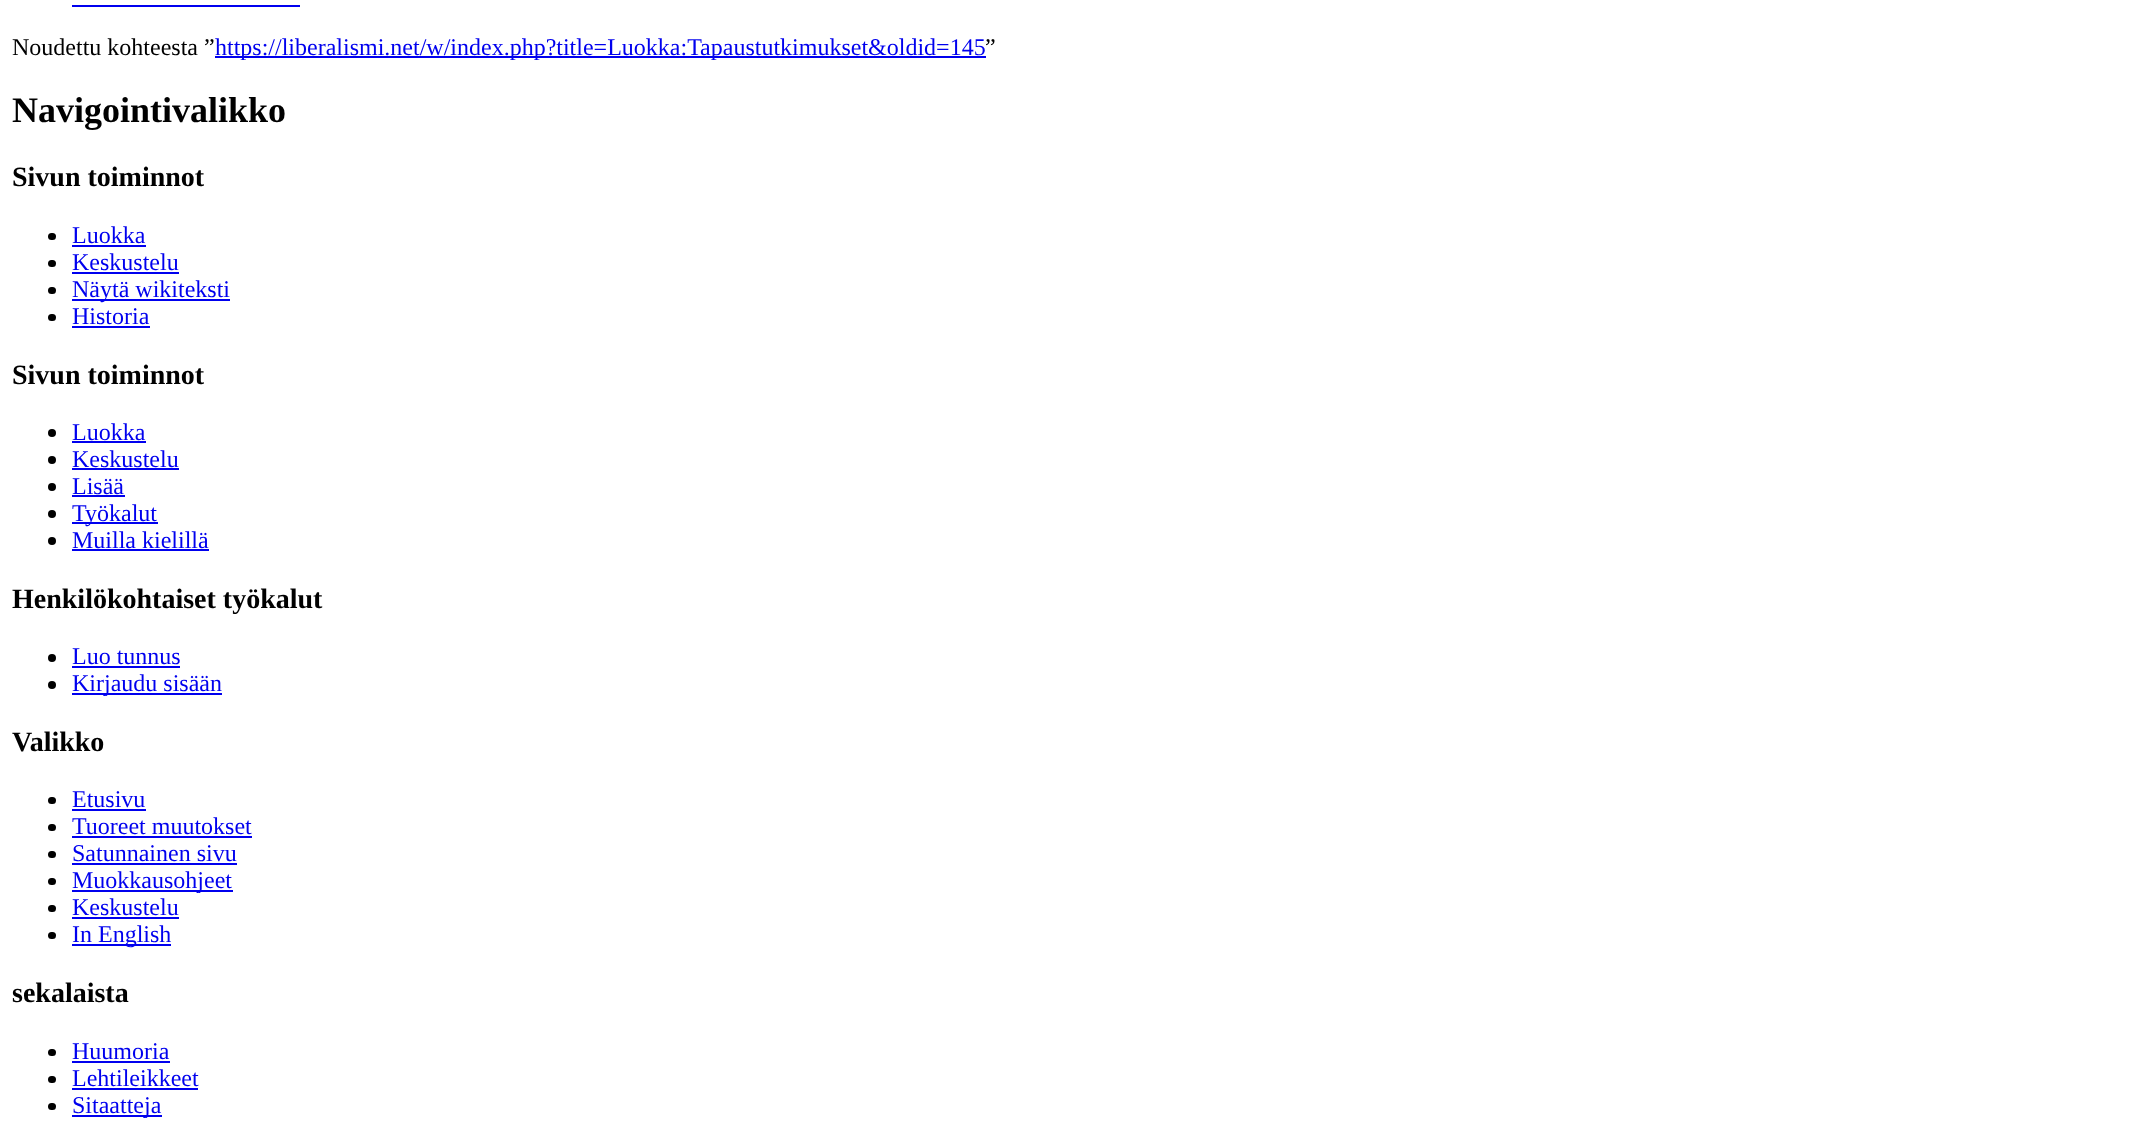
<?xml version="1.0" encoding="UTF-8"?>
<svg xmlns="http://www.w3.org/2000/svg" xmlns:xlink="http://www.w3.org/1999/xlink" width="2149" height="1141">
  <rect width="100%" height="100%" fill="#ffffff" />
  <rect x="72" y="5" width="228" height="2" fill="#0000ee" />
  <rect x="215" y="56" width="771" height="2" fill="#0000ee" />
  <rect x="48" y="233" width="8" height="7" rx="3.5" fill="#000000" />
  <rect x="72" y="245" width="74" height="2" fill="#0000ee" />
  <rect x="48" y="260" width="8" height="7" rx="3.5" fill="#000000" />
  <rect x="72" y="272" width="107" height="2" fill="#0000ee" />
  <rect x="48" y="287" width="8" height="7" rx="3.5" fill="#000000" />
  <rect x="72" y="299" width="158" height="2" fill="#0000ee" />
  <rect x="48" y="314" width="8" height="7" rx="3.5" fill="#000000" />
  <rect x="72" y="326" width="78" height="2" fill="#0000ee" />
  <circle cx="52" cy="433" r="4" fill="#000000" />
  <rect x="72" y="441" width="74" height="2" fill="#0000ee" />
  <circle cx="52" cy="460" r="4" fill="#000000" />
  <rect x="72" y="468" width="107" height="2" fill="#0000ee" />
  <circle cx="52" cy="487" r="4" fill="#000000" />
  <rect x="72" y="495" width="53" height="2" fill="#0000ee" />
  <circle cx="52" cy="514" r="4" fill="#000000" />
  <rect x="72" y="522" width="86" height="2" fill="#0000ee" />
  <circle cx="52" cy="541" r="4" fill="#000000" />
  <rect x="72" y="549" width="137" height="2" fill="#0000ee" />
  <circle cx="52" cy="658" r="4" fill="#000000" />
  <rect x="72" y="666" width="108" height="2" fill="#0000ee" />
  <circle cx="52" cy="685" r="4" fill="#000000" />
  <rect x="72" y="693" width="150" height="2" fill="#0000ee" />
  <rect x="48" y="797" width="8" height="7" rx="3.5" fill="#000000" />
  <rect x="72" y="809" width="74" height="2" fill="#0000ee" />
  <rect x="48" y="824" width="8" height="7" rx="3.5" fill="#000000" />
  <rect x="72" y="836" width="180" height="2" fill="#0000ee" />
  <rect x="48" y="851" width="8" height="7" rx="3.5" fill="#000000" />
  <rect x="72" y="863" width="165" height="2" fill="#0000ee" />
  <rect x="48" y="878" width="8" height="7" rx="3.5" fill="#000000" />
  <rect x="72" y="890" width="161" height="2" fill="#0000ee" />
  <rect x="48" y="905" width="8" height="7" rx="3.5" fill="#000000" />
  <rect x="72" y="917" width="107" height="2" fill="#0000ee" />
  <rect x="48" y="932" width="8" height="7" rx="3.5" fill="#000000" />
  <rect x="72" y="944" width="99" height="2" fill="#0000ee" />
  <rect x="48" y="1049" width="8" height="7" rx="3.5" fill="#000000" />
  <rect x="72" y="1061" width="98" height="2" fill="#0000ee" />
  <rect x="48" y="1076" width="8" height="7" rx="3.5" fill="#000000" />
  <rect x="72" y="1088" width="126" height="2" fill="#0000ee" />
  <rect x="48" y="1103" width="8" height="7" rx="3.5" fill="#000000" />
  <rect x="72" y="1115" width="90" height="2" fill="#0000ee" />
  <text x="12" y="55" style="font-family: Liberation Serif; font-size: 24px; fill: #000000">Noudettu kohteesta ”</text>
  <text x="215" y="55" style="font-family: Liberation Serif; font-size: 24px; fill: #0000ee">https://liberalismi.net/w/index.php?title=Luokka:Tapaustutkimukset&amp;oldid=145</text>
  <text x="985" y="55" style="font-family: Liberation Serif; font-size: 24px; fill: #000000">”</text>
  <text x="12" y="122" style="font-family: Liberation Serif; font-size: 36px; font-weight: bold; fill: #000000">Navigointivalikko</text>
  <text x="12" y="186" style="font-family: Liberation Serif; font-size: 28px; font-weight: bold; fill: #000000">Sivun toiminnot</text>
  <text x="72" y="243" style="font-family: Liberation Serif; font-size: 24px; fill: #0000ee">Luokka</text>
  <text x="72" y="270" style="font-family: Liberation Serif; font-size: 24px; fill: #0000ee">Keskustelu</text>
  <text x="72" y="297" style="font-family: Liberation Serif; font-size: 24px; fill: #0000ee">Näytä wikiteksti</text>
  <text x="72" y="324" style="font-family: Liberation Serif; font-size: 24px; fill: #0000ee">Historia</text>
  <text x="12" y="384" style="font-family: Liberation Serif; font-size: 28px; font-weight: bold; fill: #000000">Sivun toiminnot</text>
  <text x="72" y="440" style="font-family: Liberation Serif; font-size: 24px; fill: #0000ee">Luokka</text>
  <text x="72" y="467" style="font-family: Liberation Serif; font-size: 24px; fill: #0000ee">Keskustelu</text>
  <text x="72" y="494" style="font-family: Liberation Serif; font-size: 24px; fill: #0000ee">Lisää</text>
  <text x="72" y="521" style="font-family: Liberation Serif; font-size: 24px; fill: #0000ee">Työkalut</text>
  <text x="72" y="548" style="font-family: Liberation Serif; font-size: 24px; fill: #0000ee">Muilla kielillä</text>
  <text x="12" y="608" style="font-family: Liberation Serif; font-size: 28px; font-weight: bold; fill: #000000">Henkilökohtaiset työkalut</text>
  <text x="72" y="664" style="font-family: Liberation Serif; font-size: 24px; fill: #0000ee">Luo tunnus</text>
  <text x="72" y="691" style="font-family: Liberation Serif; font-size: 24px; fill: #0000ee">Kirjaudu sisään</text>
  <text x="12" y="751" style="font-family: Liberation Serif; font-size: 28px; font-weight: bold; fill: #000000">Valikko</text>
  <text x="72" y="807" style="font-family: Liberation Serif; font-size: 24px; fill: #0000ee">Etusivu</text>
  <text x="72" y="834" style="font-family: Liberation Serif; font-size: 24px; fill: #0000ee">Tuoreet muutokset</text>
  <text x="72" y="861" style="font-family: Liberation Serif; font-size: 24px; fill: #0000ee">Satunnainen sivu</text>
  <text x="72" y="888" style="font-family: Liberation Serif; font-size: 24px; fill: #0000ee">Muokkausohjeet</text>
  <text x="72" y="915" style="font-family: Liberation Serif; font-size: 24px; fill: #0000ee">Keskustelu</text>
  <text x="72" y="942" style="font-family: Liberation Serif; font-size: 24px; fill: #0000ee">In English</text>
  <text x="12" y="1002" style="font-family: Liberation Serif; font-size: 28px; font-weight: bold; fill: #000000">sekalaista</text>
  <text x="72" y="1059" style="font-family: Liberation Serif; font-size: 24px; fill: #0000ee">Huumoria</text>
  <text x="72" y="1086" style="font-family: Liberation Serif; font-size: 24px; fill: #0000ee">Lehtileikkeet</text>
  <text x="72" y="1113" style="font-family: Liberation Serif; font-size: 24px; fill: #0000ee">Sitaatteja</text>
</svg>
